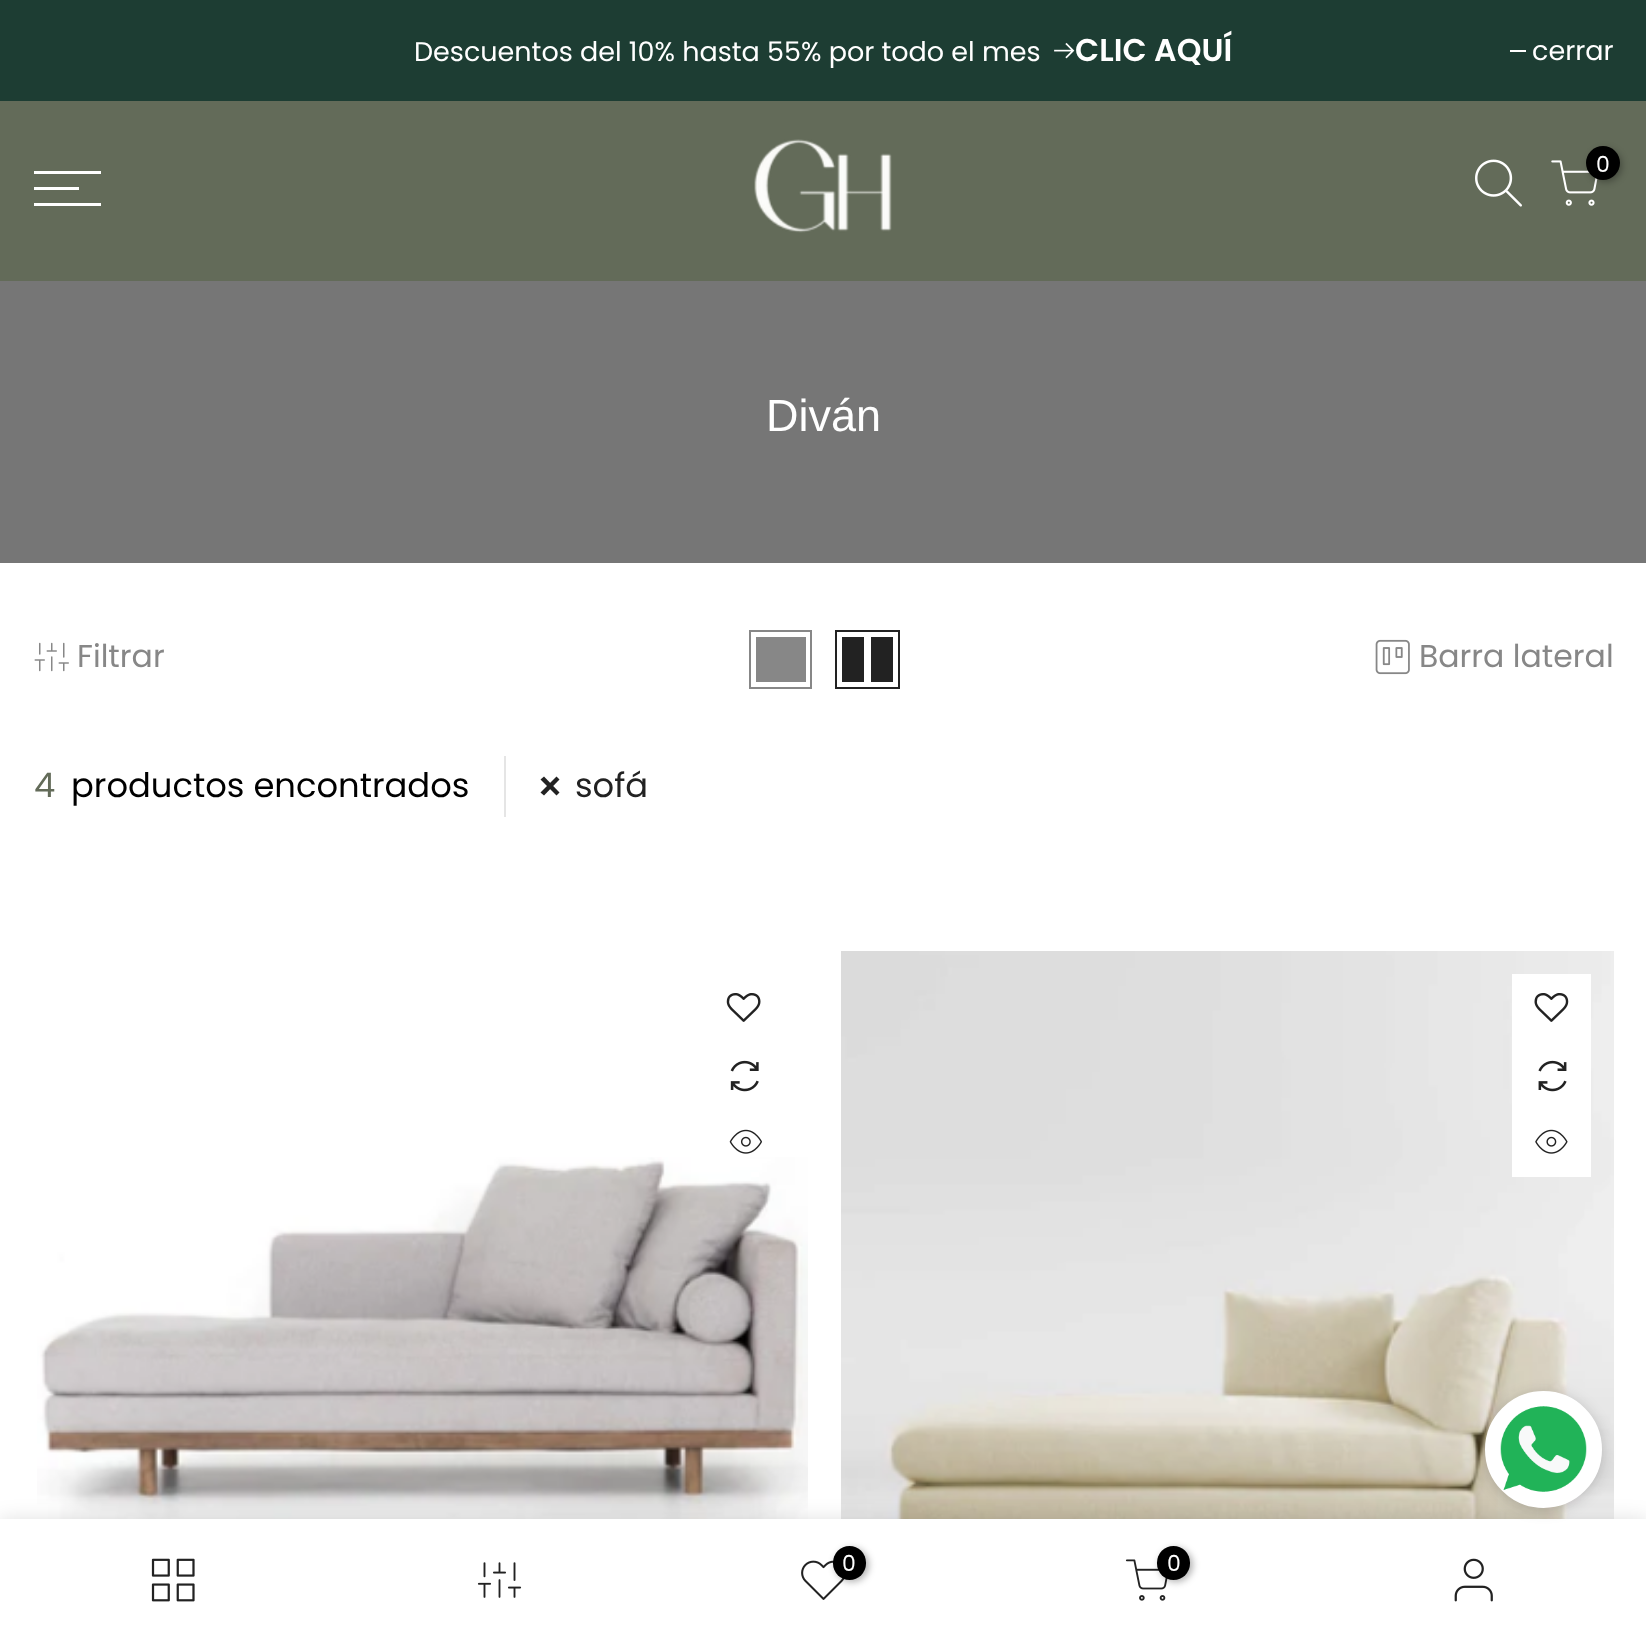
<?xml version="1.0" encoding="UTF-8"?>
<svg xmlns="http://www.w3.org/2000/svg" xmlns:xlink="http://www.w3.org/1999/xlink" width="1646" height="1642">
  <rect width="100%" height="100%" fill="#ffffff" />
  <rect width="1646" height="101" fill="#1d3d33" />
  <image x="1054" y="42" width="21" height="17" xlink:href="image1.png" />
  <rect x="1510" y="50" width="16" height="2" fill="#ffffff" />
  <rect y="101" width="1646" height="180" fill="#636b59" />
  <rect x="34" y="171" width="67" height="3" fill="#ffffff" />
  <rect x="34" y="187" width="45" height="3" fill="#ffffff" />
  <rect x="34" y="203" width="67" height="3" fill="#ffffff" />
  <image x="754" y="139" width="138" height="94" xlink:href="image2.png" />
  <image x="1475" y="159" width="47" height="48" xlink:href="image3.png" />
  <image x="1551" y="160" width="47" height="46" xlink:href="image4.png" />
  <rect x="1589" y="149" width="33" height="33" rx="16.5" fill="#000000" fill-opacity="0.3" filter="blur(3.5px)" />
  <circle cx="1603" cy="163" r="17" fill="#000000" />
  <rect y="281" width="1646" height="282" fill="#767676" />
  <image x="34" y="642" width="35" height="30" xlink:href="image5.png" />
  <rect x="750" y="631" width="61" height="57" fill="none" stroke="#878787" stroke-width="2" />
  <rect x="756" y="637" width="50" height="45" fill="#878787" />
  <rect x="836" y="631" width="63" height="57" fill="none" stroke="#222222" stroke-width="2" />
  <rect x="871" y="637" width="22" height="45" fill="#222222" />
  <rect x="842" y="637" width="22" height="45" fill="#222222" />
  <image x="1375" y="639" width="35" height="36" xlink:href="image6.png" />
  <rect x="504" y="756" width="2" height="61" fill="#e5e5e5" />
  <path d="M 544 776.5 l 15.5 16 l -3 3 l -16 -16 z" fill="#222222" />
  <path d="M 540.5 792.5 l 16 -16 l 3 3 l -15.5 16 z" fill="#222222" />
  <image x="726" y="993" width="35" height="29" xlink:href="image7.png" />
  <image x="730" y="1060" width="29" height="32" xlink:href="image8.png" />
  <image x="37" y="1157" width="771" height="362" xlink:href="image10.png" />
  <rect x="751" y="1172" width="8" height="5" fill="#ffffff" />
  <image x="729" y="1129" width="33" height="25" xlink:href="image9.png" />
  <image x="841" y="951" width="773" height="568" xlink:href="image11.png" />
  <rect x="1512" y="974" width="79" height="203" fill="#ffffff" />
  <image x="1534" y="993" width="35" height="29" xlink:href="image12.png" />
  <image x="1538" y="1060" width="29" height="32" xlink:href="image13.png" />
  <image x="1535" y="1129" width="33" height="25" xlink:href="image14.png" />
  <rect y="1519" width="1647" height="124" fill="#000000" fill-opacity="0.12" filter="blur(10px)" />
  <rect y="1519" width="1646" height="123" fill="#ffffff" />
  <rect x="1485" y="1393" width="117" height="117" rx="58.5" fill="#1b1b1b" fill-opacity="0.2" filter="blur(7px)" />
  <circle cx="1543.5" cy="1449.5" r="57.5" fill="#ffffff" stroke="#ffffff" stroke-width="2" />
  <image x="1500" y="1406" width="87" height="86" xlink:href="image15.png" />
  <image x="151" y="1558" width="44" height="44" xlink:href="image16.png" />
  <image x="477" y="1562" width="45" height="36" xlink:href="image17.png" />
  <image x="801" y="1560" width="44" height="40" xlink:href="image18.png" />
  <rect x="835" y="1548" width="34" height="34" rx="17" fill="#000000" fill-opacity="0.3" filter="blur(3.5px)" />
  <rect x="833" y="1546" width="33" height="34" rx="16.5" fill="#000000" />
  <image x="1125" y="1559" width="43" height="42" xlink:href="image19.png" />
  <rect x="1159" y="1548" width="34" height="34" rx="17" fill="#000000" fill-opacity="0.3" filter="blur(3.5px)" />
  <rect x="1157" y="1546" width="33" height="34" rx="16.5" fill="#000000" />
  <image x="1454" y="1558" width="39" height="44" xlink:href="image20.png" />
  <text x="414" y="61" style="font-family: Poppins; font-size: 27px; fill: #ffffff">Descuentos del 10% hasta 55% por todo el mes</text>
  <text x="1075" y="61" style="font-family: Poppins; font-size: 31.5px; font-weight: 600; fill: #ffffff">CLIC AQUÍ</text>
  <text x="1532" y="60" style="font-family: Poppins; font-size: 27px; fill: #ffffff">cerrar</text>
  <text x="1596" y="172" style="font-family: Poppins; font-size: 22px; fill: #ffffff">0</text>
  <text x="766" y="431" style="font-family: Liberation Sans; font-size: 45px; fill: #ffffff">Diván</text>
  <text x="77" y="667" style="font-family: Poppins; font-size: 31.5px; fill: #878787">Filtrar</text>
  <text x="1419" y="667" style="font-family: Poppins; font-size: 31.5px; fill: #878787">Barra lateral</text>
  <text x="34" y="797" style="font-family: Poppins; font-size: 33.75px; fill: #636b59">4</text>
  <text x="71" y="797" style="font-family: Poppins; font-size: 33.75px; fill: #000000">productos encontrados</text>
  <text x="575" y="797" style="font-family: Poppins; font-size: 33.75px; fill: #222222">sofá</text>
  <text x="842" y="1571" style="font-family: Poppins; font-size: 22px; fill: #ffffff">0</text>
  <text x="1167" y="1571" style="font-family: Poppins; font-size: 22px; fill: #ffffff">0</text>
</svg>
